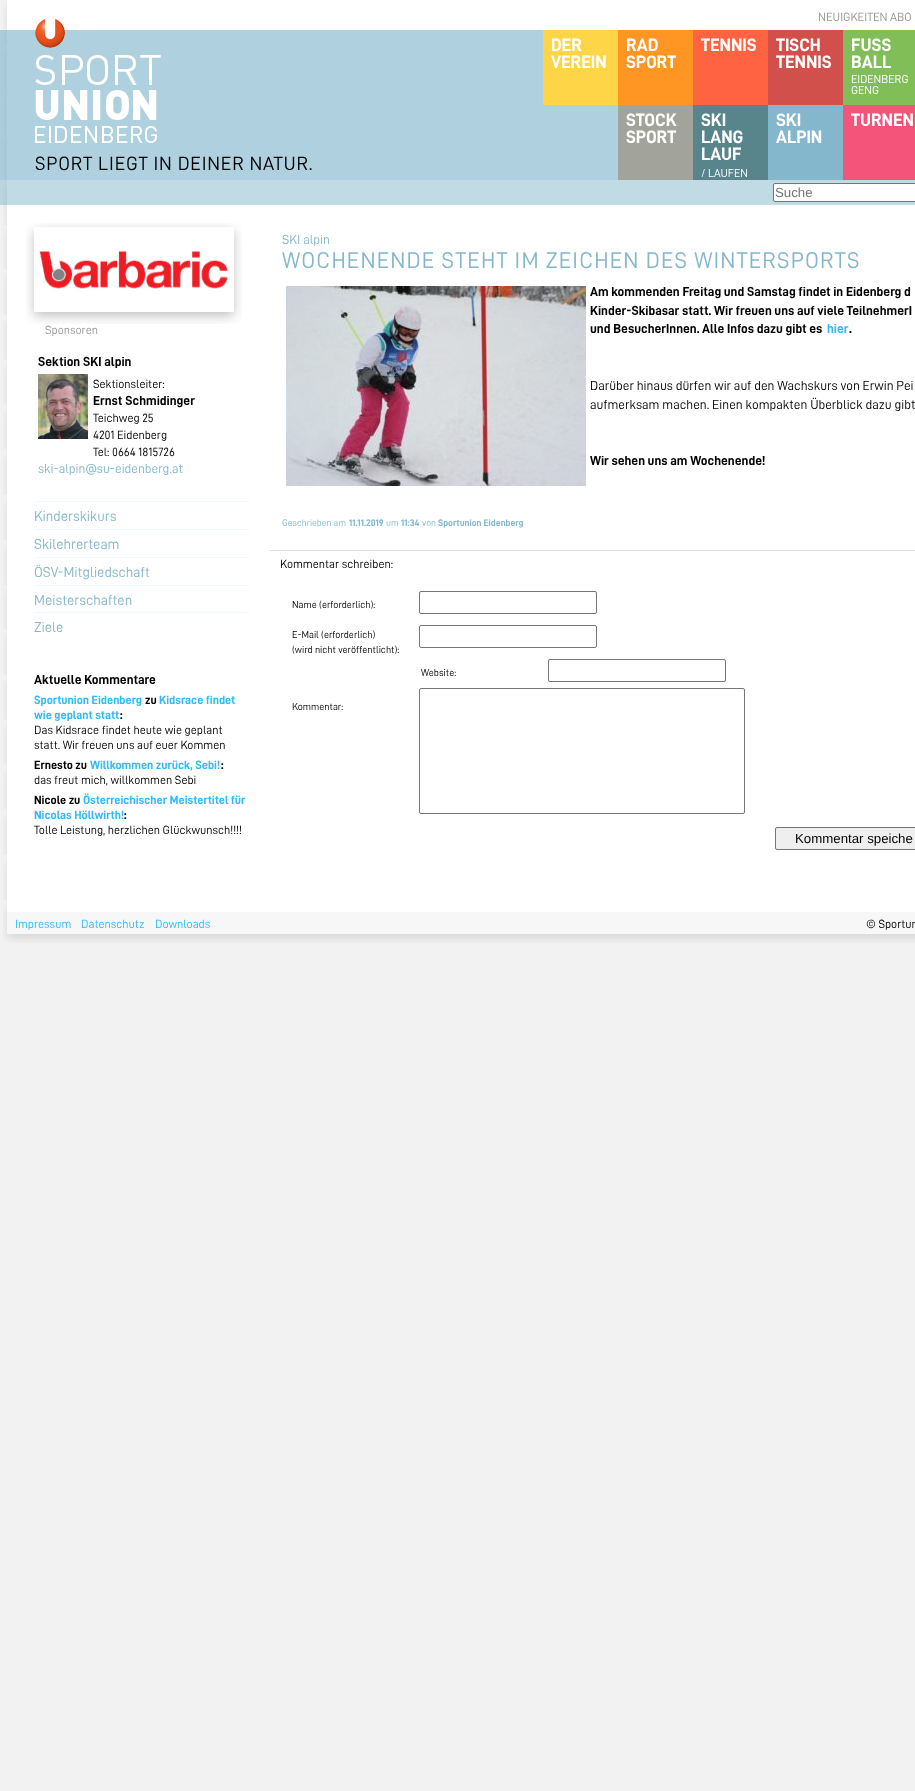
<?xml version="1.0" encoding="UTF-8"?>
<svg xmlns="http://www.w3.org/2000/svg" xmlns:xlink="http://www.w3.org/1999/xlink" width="915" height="1791">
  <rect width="100%" height="100%" fill="#f2f2f2" />
  <image x="3" y="0" width="912" height="912" xlink:href="image2.png" />
  <rect y="30" width="618" height="150" fill="#84b7cc" fill-opacity="0.65" />
  <image x="35" y="18" width="126" height="125" xlink:href="image1.png" />
  <rect x="543" y="30" width="75" height="75" fill="#ffd548" />
  <rect x="618" y="30" width="75" height="75" fill="#ff9523" />
  <rect x="693" y="30" width="75" height="75" fill="#ff6342" />
  <rect x="768" y="30" width="75" height="75" fill="#d2504c" />
  <rect x="843" y="30" width="72" height="75" fill="#82be58" />
  <rect x="618" y="105" width="75" height="75" fill="#a2a49c" />
  <rect x="693" y="105" width="75" height="75" fill="#58848b" />
  <rect x="768" y="105" width="75" height="75" fill="#84b7cc" />
  <rect x="843" y="105" width="72" height="75" fill="#f45479" />
  <rect y="180" width="915" height="25" fill="#84b7cc" fill-opacity="0.5" />
  <rect x="773.5" y="183.5" width="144" height="18" rx="1.5" fill="#ffffff" stroke="#767676" />
  <image x="26" y="223" width="216" height="101" xlink:href="image3.png" />
  <image x="34" y="227" width="200" height="85" xlink:href="image4.png" />
  <image x="37" y="250" width="194" height="39" xlink:href="image5.png" />
  <image x="38" y="374" width="50" height="65" xlink:href="image6.png" />
  <rect x="34" y="501" width="216" height="1" fill="#f0f9fe" />
  <rect x="34" y="529" width="216" height="1" fill="#f0f9fe" />
  <rect x="34" y="557" width="216" height="1" fill="#f0f9fe" />
  <rect x="34" y="585" width="216" height="1" fill="#f0f9fe" />
  <rect x="34" y="612" width="216" height="1" fill="#f0f9fe" />
  <rect x="270" y="550" width="645" height="1" fill="#dedede" />
  <image x="286" y="286" width="300" height="200" xlink:href="image7.png" />
  <rect x="419.5" y="591.5" width="177" height="22" rx="1.5" fill="none" stroke="#767676" />
  <rect x="419.5" y="625.5" width="177" height="22" rx="1.5" fill="none" stroke="#767676" />
  <rect x="548.5" y="659.5" width="177" height="22" rx="1.5" fill="none" stroke="#767676" />
  <rect x="419.5" y="688.5" width="325" height="125" rx="1.5" fill="none" stroke="#767676" />
  <rect x="775.5" y="827.5" width="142" height="22" rx="1.5" fill="#efefef" stroke="#767676" />
  <image x="3" y="912" width="912" height="31" xlink:href="image8.png" />
  <text x="818" y="21" style="font-family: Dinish; font-size: 12px; fill: #99968d">NEUIGKEITEN ABO</text>
  <text x="551" y="51" style="font-family: Dinish; font-size: 18px; font-weight: bold; fill: #ffffff">DER</text>
  <text x="551" y="68" style="font-family: Dinish; font-size: 18px; font-weight: bold; fill: #ffffff">VEREIN</text>
  <text x="626" y="51" style="font-family: Dinish; font-size: 18px; font-weight: bold; fill: #ffffff">RAD</text>
  <text x="626" y="68" style="font-family: Dinish; font-size: 18px; font-weight: bold; fill: #ffffff">SPORT</text>
  <text x="701" y="51" style="font-family: Dinish; font-size: 18px; font-weight: bold; fill: #ffffff">TENNIS</text>
  <text x="776" y="51" style="font-family: Dinish; font-size: 18px; font-weight: bold; fill: #ffffff">TISCH</text>
  <text x="776" y="68" style="font-family: Dinish; font-size: 18px; font-weight: bold; fill: #ffffff">TENNIS</text>
  <text x="851" y="51" style="font-family: Dinish; font-size: 18px; font-weight: bold; fill: #ffffff">FUSS</text>
  <text x="851" y="68" style="font-family: Dinish; font-size: 18px; font-weight: bold; fill: #ffffff">BALL</text>
  <text x="851" y="83" style="font-family: Dinish; font-size: 11.5px; fill: #ffffff">EIDENBERG</text>
  <text x="851" y="94" style="font-family: Dinish; font-size: 11.5px; fill: #ffffff">GENG</text>
  <text x="626" y="126" style="font-family: Dinish; font-size: 18px; font-weight: bold; fill: #ffffff">STOCK</text>
  <text x="626" y="143" style="font-family: Dinish; font-size: 18px; font-weight: bold; fill: #ffffff">SPORT</text>
  <text x="701" y="126" style="font-family: Dinish; font-size: 18px; font-weight: bold; fill: #ffffff">SKI</text>
  <text x="701" y="143" style="font-family: Dinish; font-size: 18px; font-weight: bold; fill: #ffffff">LANG</text>
  <text x="701" y="160" style="font-family: Dinish; font-size: 18px; font-weight: bold; fill: #ffffff">LAUF</text>
  <text x="701" y="177" style="font-family: Dinish; font-size: 11.5px; fill: #ffffff">/ LAUFEN</text>
  <text x="776" y="126" style="font-family: Dinish; font-size: 18px; font-weight: bold; fill: #ffffff">SKI</text>
  <text x="776" y="143" style="font-family: Dinish; font-size: 18px; font-weight: bold; fill: #ffffff">ALPIN</text>
  <text x="851" y="126" style="font-family: Dinish; font-size: 18px; font-weight: bold; fill: #ffffff">TURNEN</text>
  <text x="35" y="170" style="font-family: Dinish; font-size: 19.25px; letter-spacing: 0.8px; fill: #000000">SPORT LIEGT IN DEINER NATUR.</text>
  <text x="775" y="197" style="font-family: Liberation Sans; font-size: 13.25px; fill: #757575">Suche</text>
  <text x="45" y="334" style="font-family: Dinish; font-size: 12px; fill: #999999">Sponsoren</text>
  <text x="38" y="366" style="font-family: Dinish; font-size: 13.2px; font-weight: bold; fill: #000000">Sektion SKI alpin</text>
  <text x="93" y="388" style="font-family: Dinish; font-size: 12px; fill: #000000">Sektionsleiter:</text>
  <text x="93" y="405" style="font-family: Dinish; font-size: 13.2px; font-weight: bold; fill: #000000">Ernst Schmidinger</text>
  <text x="93" y="422" style="font-family: Dinish; font-size: 12px; fill: #000000">Teichweg 25</text>
  <text x="93" y="439" style="font-family: Dinish; font-size: 12px; fill: #000000">4201 Eidenberg</text>
  <text x="93" y="456" style="font-family: Dinish; font-size: 12px; fill: #000000">Tel: 0664 1815726</text>
  <text x="38" y="473" style="font-family: Dinish; font-size: 13.2px; fill: #84b7cc">ski-alpin@su-eidenberg.at</text>
  <text x="34" y="521" style="font-family: Dinish; font-size: 14.5px; fill: #84b7cc">Kinderskikurs</text>
  <text x="34" y="549" style="font-family: Dinish; font-size: 14.5px; fill: #84b7cc">Skilehrerteam</text>
  <text x="34" y="577" style="font-family: Dinish; font-size: 14.5px; fill: #84b7cc">ÖSV-Mitgliedschaft</text>
  <text x="34" y="605" style="font-family: Dinish; font-size: 14.5px; fill: #84b7cc">Meisterschaften</text>
  <text x="34" y="632" style="font-family: Dinish; font-size: 14.5px; fill: #84b7cc">Ziele</text>
  <text x="34" y="684" style="font-family: Dinish; font-size: 13.2px; font-weight: bold; fill: #000000">Aktuelle Kommentare</text>
  <text x="34" y="704" style="font-family: Dinish; font-size: 12px; font-weight: bold; fill: #2fbafa">Sportunion Eidenberg</text>
  <text x="145" y="704" style="font-family: Dinish; font-size: 12px; font-weight: bold; fill: #000000">zu</text>
  <text x="159" y="704" style="font-family: Dinish; font-size: 12px; font-weight: bold; fill: #2fbafa">Kidsrace findet</text>
  <text x="34" y="719" style="font-family: Dinish; font-size: 12px; font-weight: bold; fill: #2fbafa">wie geplant statt</text>
  <text x="120" y="719" style="font-family: Dinish; font-size: 12px; font-weight: bold; fill: #000000">:</text>
  <text x="34" y="734" style="font-family: Dinish; font-size: 12px; fill: #000000">Das Kidsrace findet heute wie geplant</text>
  <text x="34" y="749" style="font-family: Dinish; font-size: 12px; fill: #000000">statt. Wir freuen uns auf euer Kommen</text>
  <text x="34" y="769" style="font-family: Dinish; font-size: 12px; font-weight: bold; fill: #000000">Ernesto zu</text>
  <text x="90" y="769" style="font-family: Dinish; font-size: 12px; font-weight: bold; fill: #2fbafa">Willkommen zurück, Sebi!</text>
  <text x="221" y="769" style="font-family: Dinish; font-size: 12px; font-weight: bold; fill: #000000">:</text>
  <text x="34" y="784" style="font-family: Dinish; font-size: 12px; fill: #000000">das freut mich, willkommen Sebi</text>
  <text x="34" y="804" style="font-family: Dinish; font-size: 12px; font-weight: bold; fill: #000000">Nicole zu</text>
  <text x="83" y="804" style="font-family: Dinish; font-size: 12px; font-weight: bold; fill: #2fbafa">Österreichischer Meistertitel für</text>
  <text x="34" y="819" style="font-family: Dinish; font-size: 12px; font-weight: bold; fill: #2fbafa">Nicolas Höllwirth!</text>
  <text x="124" y="819" style="font-family: Dinish; font-size: 12px; font-weight: bold; fill: #000000">:</text>
  <text x="34" y="834" style="font-family: Dinish; font-size: 12px; fill: #000000">Tolle Leistung, herzlichen Glückwunsch!!!!</text>
  <text x="282" y="244" style="font-family: Dinish; font-size: 13.2px; fill: #84b7cc">SKI alpin</text>
  <text x="282" y="268" style="font-family: Dinish; font-size: 22.8px; letter-spacing: 1.15px; fill: #84b7cc">WOCHENENDE STEHT IM ZEICHEN DES WINTERSPORTS</text>
  <text x="590" y="296" style="font-family: Dinish; font-size: 13.2px; font-weight: bold; fill: #000000">Am kommenden Freitag und Samstag findet in Eidenberg d</text>
  <text x="590" y="315" style="font-family: Dinish; font-size: 13.2px; font-weight: bold; fill: #000000">Kinder-Skibasar statt. Wir freuen uns auf viele TeilnehmerI</text>
  <text x="590" y="333" style="font-family: Dinish; font-size: 13.2px; font-weight: bold; fill: #000000">und BesucherInnen. Alle Infos dazu gibt es</text>
  <text x="827" y="333" style="font-family: Dinish; font-size: 13.2px; font-weight: bold; fill: #2fbafa">hier</text>
  <text x="849" y="333" style="font-family: Dinish; font-size: 13.2px; font-weight: bold; fill: #000000">.</text>
  <text x="590" y="390" style="font-family: Dinish; font-size: 13.2px; fill: #000000">Darüber hinaus dürfen wir auf den Wachskurs von Erwin Pei</text>
  <text x="590" y="409" style="font-family: Dinish; font-size: 13.2px; fill: #000000">aufmerksam machen. Einen kompakten Überblick dazu gibt</text>
  <text x="590" y="465" style="font-family: Dinish; font-size: 13.2px; font-weight: bold; fill: #000000">Wir sehen uns am Wochenende!</text>
  <text x="282" y="526" style="font-family: Dinish; font-size: 9.5px; fill: #84b7cc">Geschrieben am</text>
  <text x="349" y="526" style="font-family: Dinish; font-size: 9.5px; font-weight: bold; fill: #84b7cc">11.11.2019</text>
  <text x="386" y="526" style="font-family: Dinish; font-size: 9.5px; fill: #84b7cc">um</text>
  <text x="401" y="526" style="font-family: Dinish; font-size: 9.5px; font-weight: bold; fill: #84b7cc">11:34</text>
  <text x="422" y="526" style="font-family: Dinish; font-size: 9.5px; fill: #84b7cc">von</text>
  <text x="438" y="526" style="font-family: Dinish; font-size: 9.5px; font-weight: bold; fill: #84b7cc">Sportunion Eidenberg</text>
  <text x="280" y="568" style="font-family: Dinish; font-size: 12px; fill: #000000">Kommentar schreiben:</text>
  <text x="292" y="608" style="font-family: Dinish; font-size: 10px; fill: #000000">Name (erforderlich):</text>
  <text x="292" y="638" style="font-family: Dinish; font-size: 10px; fill: #000000">E-Mail (erforderlich)</text>
  <text x="292" y="653" style="font-family: Dinish; font-size: 10px; fill: #000000">(wird nicht veröffentlicht):</text>
  <text x="421" y="676" style="font-family: Dinish; font-size: 10px; fill: #000000">Website:</text>
  <text x="292" y="710" style="font-family: Dinish; font-size: 10px; fill: #000000">Kommentar:</text>
  <text x="795" y="843" style="font-family: Liberation Sans; font-size: 13.25px; fill: #000000">Kommentar speiche</text>
  <text x="15" y="928" style="font-family: Dinish; font-size: 12px; fill: #2fbafa">Impressum</text>
  <text x="81" y="928" style="font-family: Dinish; font-size: 12px; fill: #2fbafa">Datenschutz</text>
  <text x="155" y="928" style="font-family: Dinish; font-size: 12px; fill: #2fbafa">Downloads</text>
  <text x="866" y="928" style="font-family: Dinish; font-size: 12px; fill: #000000">© Sportun</text>
</svg>
